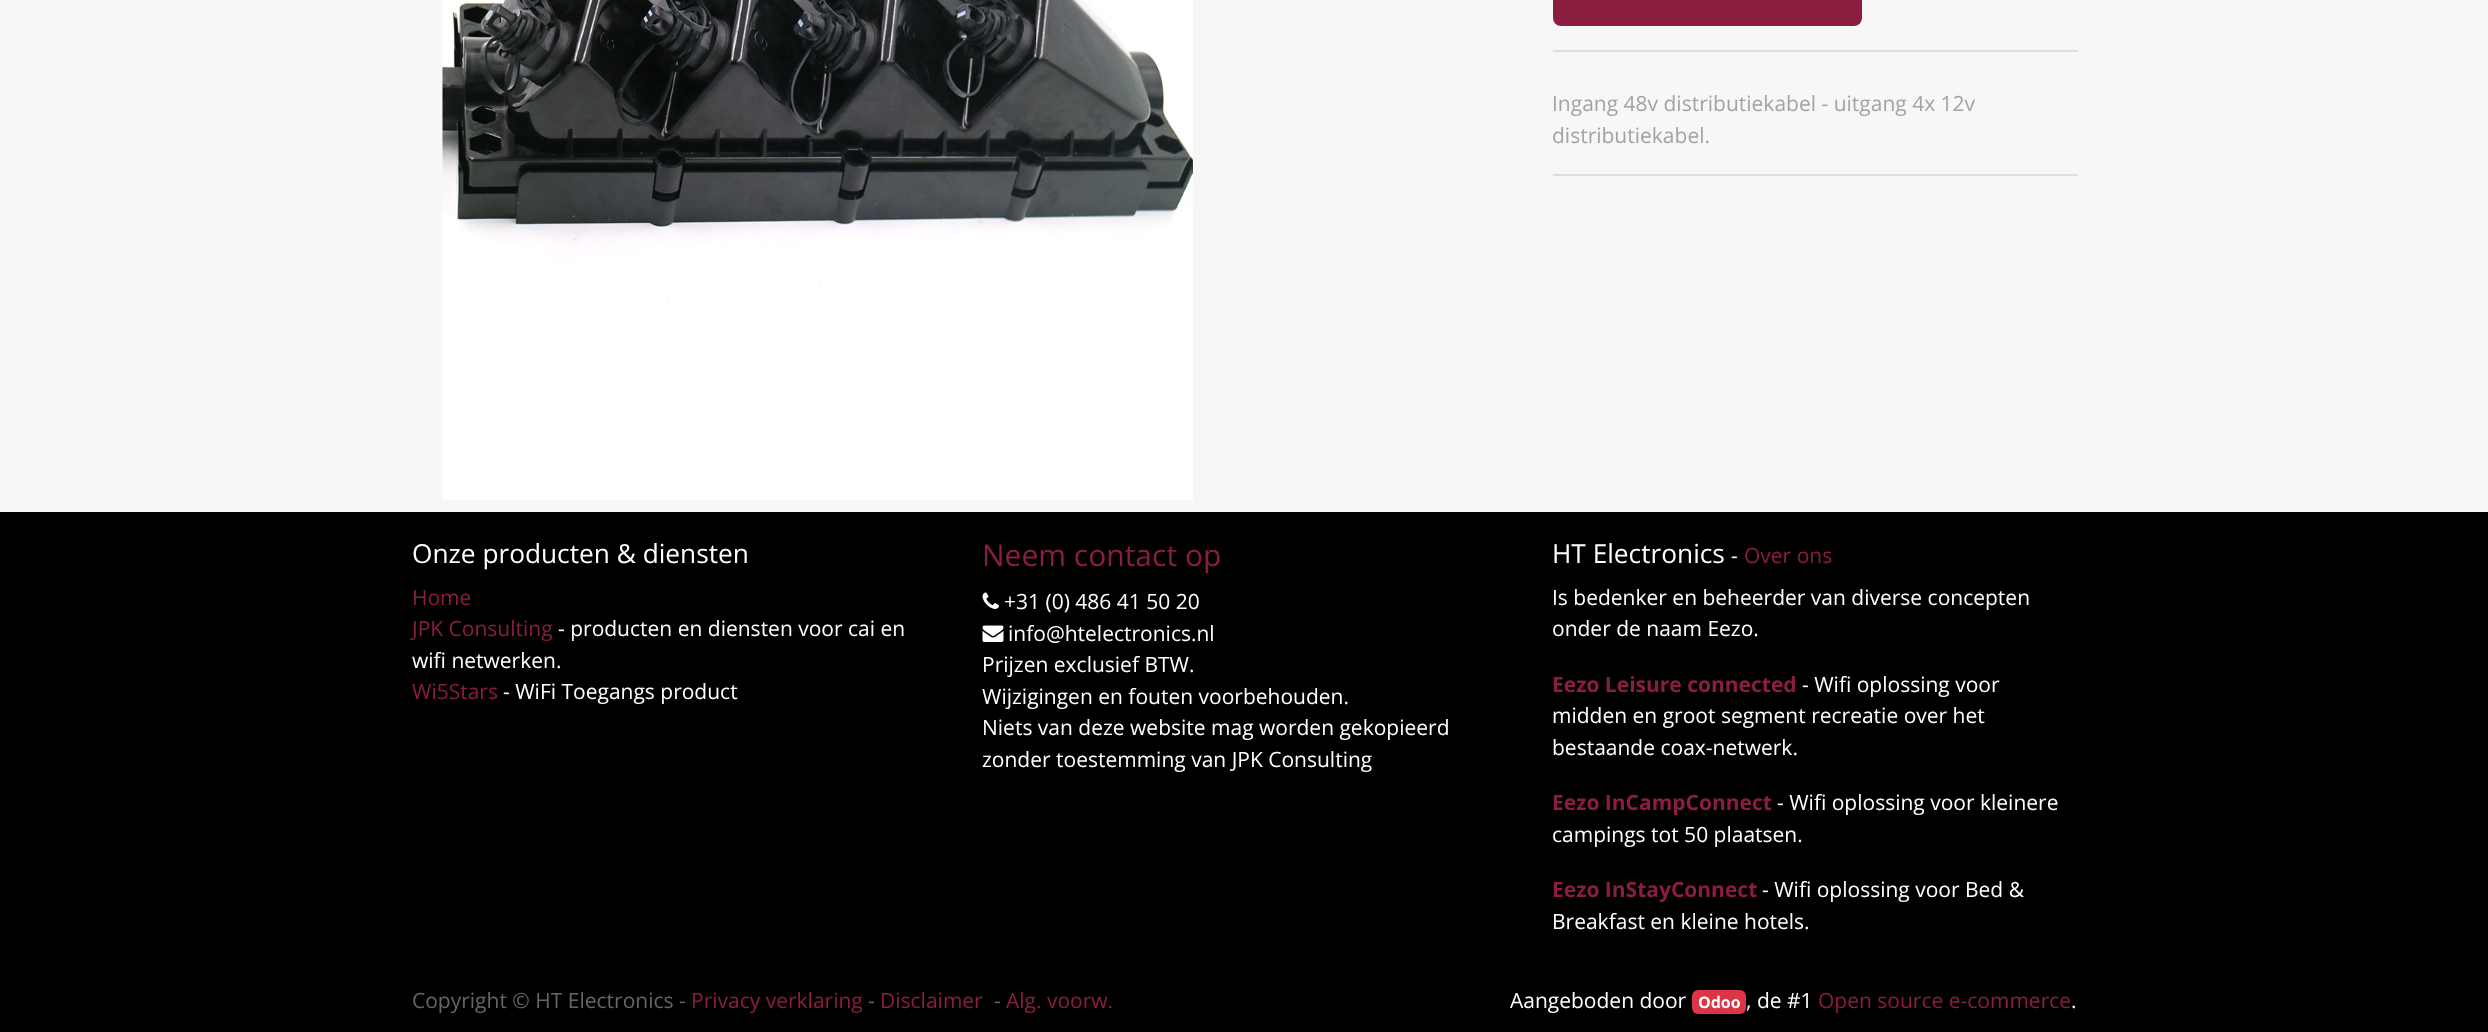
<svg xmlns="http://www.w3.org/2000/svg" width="2488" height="1032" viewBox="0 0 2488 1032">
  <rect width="100%" height="100%" fill="rgb(247,247,247)"/>
  <image x="442" y="0" width="751" height="500" href="pic1.png"/>
  <rect x="1554" y="-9" width="307" height="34" rx="7" fill="rgb(139,30,63)" stroke="rgb(139,30,63)" stroke-width="2"/>
  <rect x="1553" y="50" width="525" height="2" fill="rgb(222,222,222)"/>
  <g font-family="Open Sans" font-size="21" fill="rgb(161,163,165)">
    <text>
      <tspan x="1552" y="111">Ingang 48v distributiekabel - uitgang 4x 12v</tspan>
      <tspan x="1552" y="143">distributiekabel.</tspan>
    </text>
  </g>
  <rect x="1553" y="174" width="525" height="2" fill="rgb(222,222,222)"/>
  <rect x="0" y="512" width="2488" height="520" fill="rgb(0,0,0)"/>
  <text x="412" y="563" font-family="Open Sans" font-size="26.25" fill="rgb(255,255,255)">Onze producten &amp; diensten</text>
  <g font-family="Open Sans" font-size="21" fill="rgb(139,30,63)">
    <text>
      <tspan x="412" y="605">Home</tspan>
      <tspan x="412" y="636">JPK Consulting</tspan>
    </text>
  </g>
  <g font-family="Open Sans" font-size="21" fill="rgb(255,255,255)">
    <text x="558" y="636">- producten en diensten voor cai en</text>
    <text x="412" y="668">wifi netwerken.</text>
  </g>
  <text x="412" y="699" font-family="Open Sans" font-size="21" fill="rgb(139,30,63)">Wi5Stars</text>
  <text x="503" y="699" font-family="Open Sans" font-size="21" fill="rgb(255,255,255)">- WiFi Toegangs product</text>
  <text x="982" y="566" font-family="Open Sans" font-size="30" fill="rgb(139,30,63)">Neem contact op</text>
  <image x="982" y="592" width="17" height="17" href="pic2.png"/>
  <text x="1004" y="609" font-family="Open Sans" font-size="21" fill="rgb(255,255,255)">+31 (0) 486 41 50 20</text>
  <image x="982" y="625" width="22" height="17" href="pic3.png"/>
  <g font-family="Open Sans" font-size="21" fill="rgb(255,255,255)">
    <text x="1008" y="641">info@htelectronics.nl</text>
    <text>
      <tspan x="982" y="672">Prijzen exclusief BTW.</tspan>
      <tspan x="982" y="704">Wijzigingen en fouten voorbehouden.</tspan>
      <tspan x="982" y="735">Niets van deze website mag worden gekopieerd</tspan>
      <tspan x="982" y="767">zonder toestemming van JPK Consulting</tspan>
    </text>
  </g>
  <text x="1552" y="563" font-family="Open Sans" font-size="26.25" fill="rgb(255,255,255)">HT Electronics</text>
  <text x="1731" y="563" font-family="Open Sans" font-size="21" fill="rgb(255,255,255)">-</text>
  <text x="1744" y="563" font-family="Open Sans" font-size="21" fill="rgb(139,30,63)">Over ons</text>
  <g font-family="Open Sans" font-size="21" fill="rgb(255,255,255)">
    <text>
      <tspan x="1552" y="605">Is bedenker en beheerder van diverse concepten</tspan>
      <tspan x="1552" y="636">onder de naam Eezo.</tspan>
    </text>
  </g>
  <text x="1552" y="692" font-family="Open Sans" font-size="21" font-weight="bold" fill="rgb(139,30,63)">Eezo Leisure connected</text>
  <g font-family="Open Sans" font-size="21" fill="rgb(255,255,255)">
    <text x="1802" y="692">- Wifi oplossing voor</text>
    <text>
      <tspan x="1552" y="723">midden en groot segment recreatie over het</tspan>
      <tspan x="1552" y="755">bestaande coax-netwerk.</tspan>
    </text>
  </g>
  <text x="1552" y="810" font-family="Open Sans" font-size="21" font-weight="bold" fill="rgb(139,30,63)">Eezo InCampConnect</text>
  <g font-family="Open Sans" font-size="21" fill="rgb(255,255,255)">
    <text x="1777" y="810">- Wifi oplossing voor kleinere</text>
    <text x="1552" y="842">campings tot 50 plaatsen.</text>
  </g>
  <text x="1552" y="897" font-family="Open Sans" font-size="21" font-weight="bold" fill="rgb(139,30,63)">Eezo InStayConnect</text>
  <g font-family="Open Sans" font-size="21" fill="rgb(255,255,255)">
    <text x="1762" y="897">- Wifi oplossing voor Bed &amp;</text>
    <text x="1552" y="929">Breakfast en kleine hotels.</text>
  </g>
  <text x="412" y="1008" font-family="Open Sans" font-size="21" fill="rgb(102,102,102)">Copyright © HT Electronics -</text>
  <text x="691" y="1008" font-family="Open Sans" font-size="21" fill="rgb(139,30,63)">Privacy verklaring</text>
  <text x="868" y="1008" font-family="Open Sans" font-size="21" fill="rgb(102,102,102)">-</text>
  <text x="880" y="1008" font-family="Open Sans" font-size="21" fill="rgb(139,30,63)">Disclaimer</text>
  <text x="994" y="1008" font-family="Open Sans" font-size="21" fill="rgb(102,102,102)">-</text>
  <text x="1006" y="1008" font-family="Open Sans" font-size="21" fill="rgb(139,30,63)">Alg. voorw.</text>
  <text x="1510" y="1008" font-family="Open Sans" font-size="21" fill="rgb(255,255,255)">Aangeboden door</text>
  <rect x="1692" y="990" width="54" height="24" rx="6" fill="rgb(220,53,69)"/>
  <text x="1698" y="1008" font-family="Open Sans" font-size="16" font-weight="bold" fill="rgb(255,255,255)">Odoo</text>
  <text x="1746" y="1008" font-family="Open Sans" font-size="21" fill="rgb(255,255,255)">, de #1</text>
  <text x="1818" y="1008" font-family="Open Sans" font-size="21" fill="rgb(139,30,63)">Open source e-commerce</text>
  <text x="2071" y="1008" font-family="Open Sans" font-size="21" fill="rgb(255,255,255)">.</text>
</svg>
